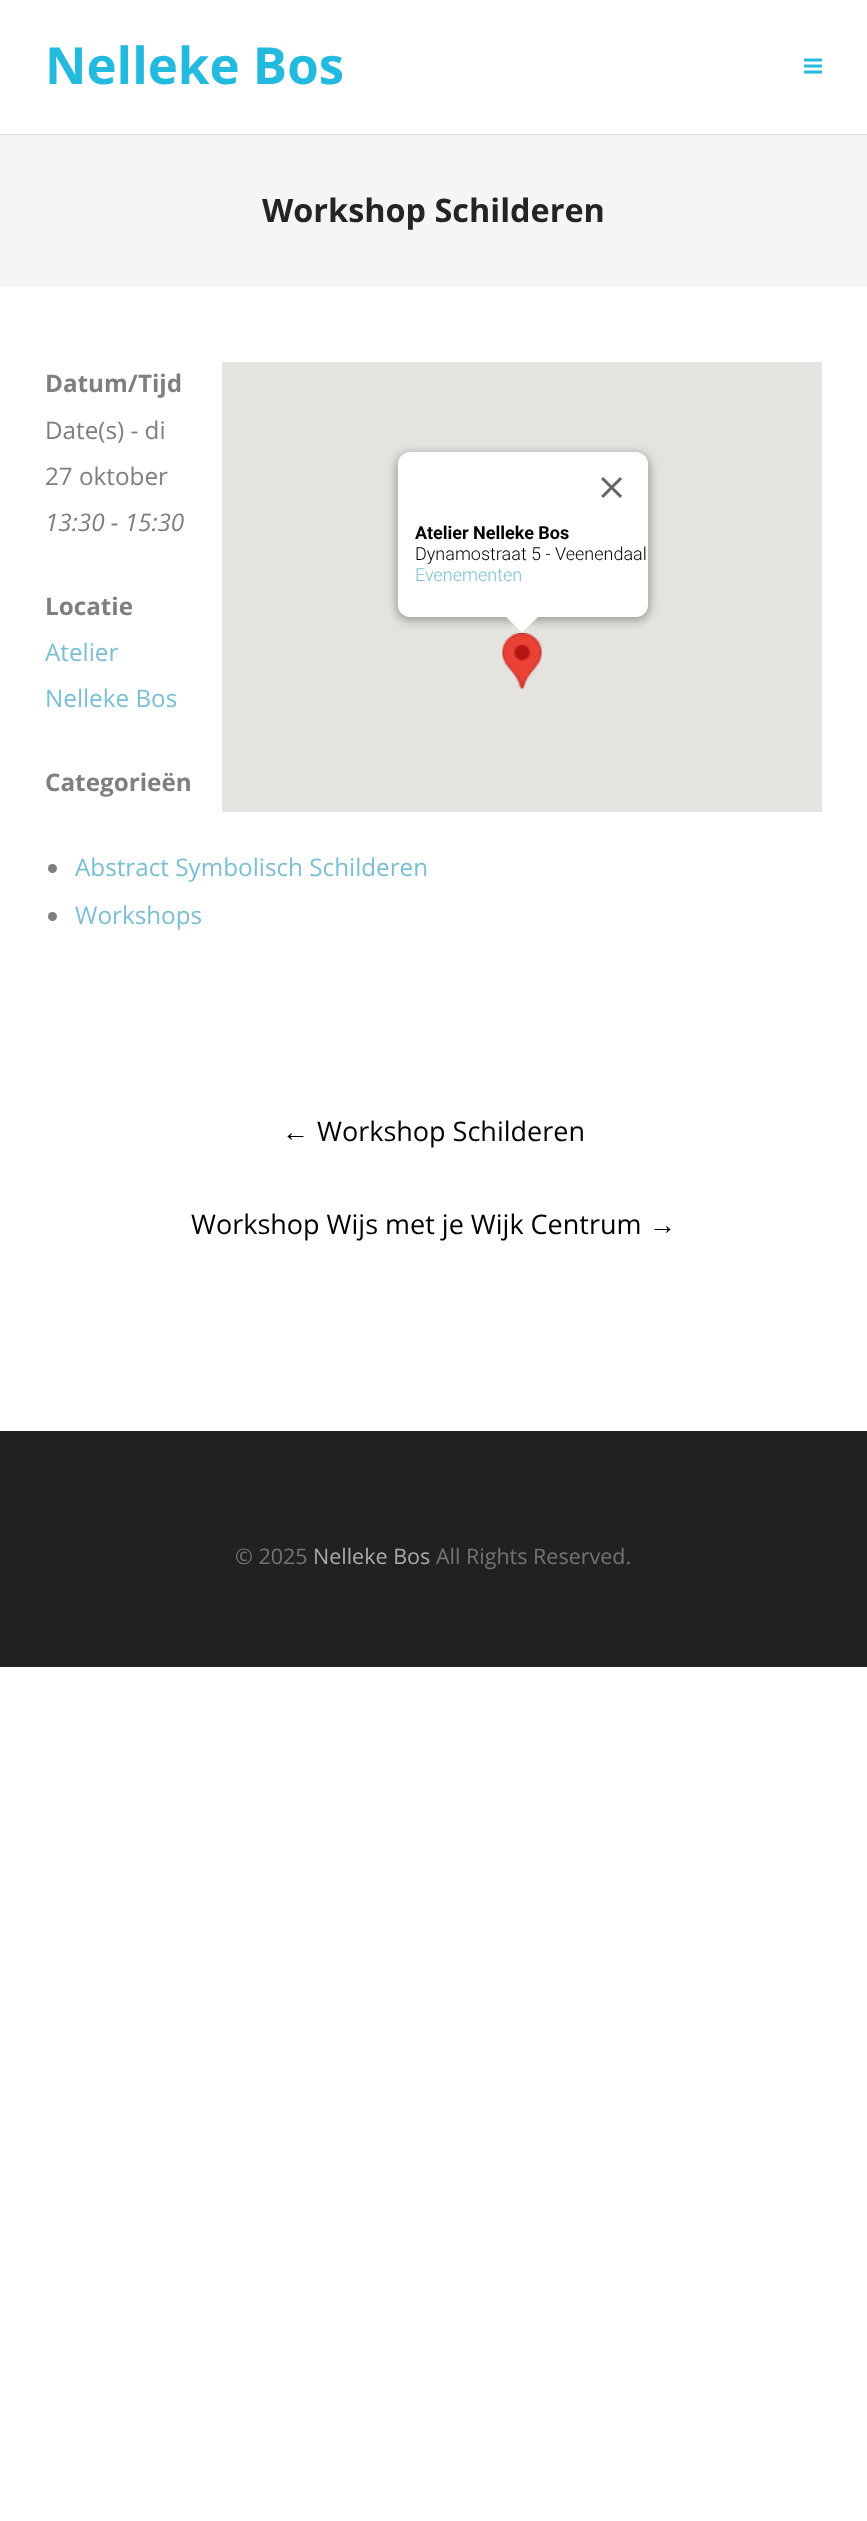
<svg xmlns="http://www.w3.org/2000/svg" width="867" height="2521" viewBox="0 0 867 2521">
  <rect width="100%" height="100%" fill="rgb(255,255,255)"/>
  <rect x="0" y="134" width="867" height="1" fill="rgb(221,221,221)"/>
  <text x="45" y="84" font-family="Open Sans" font-size="51" font-weight="bold" fill="rgb(35,186,224)">Nelleke Bos</text>
  <image x="804" y="58" width="18" height="16" href="pic1.png"/>
  <rect x="0" y="135" width="867" height="152" fill="rgb(245,245,245)"/>
  <text x="262" y="222" font-family="Open Sans" font-size="32.4" font-weight="bold" fill="rgb(36,36,36)">Workshop Schilderen</text>
  <text x="45" y="392" font-family="Open Sans" font-size="24.25" font-weight="bold" fill="rgb(127,127,127)">Datum/Tijd</text>
  <g font-family="Open Sans" font-size="24.25" fill="rgb(127,127,127)">
    <text>
      <tspan x="45" y="439">Date(s) - di</tspan>
      <tspan x="45" y="485">27 oktober</tspan>
    </text>
  </g>
  <text x="45" y="531" font-family="Open Sans" font-size="24.25" font-style="italic" fill="rgb(127,127,127)">13:30 - 15:30</text>
  <rect x="222" y="362" width="600" height="450" fill="rgb(229,227,223)"/>
  <image x="502" y="633" width="40" height="56" href="pic3.png"/>
  <rect x="396" y="453" width="254" height="168" rx="14" fill="rgba(0,0,0,0.3)" filter="blur(5px)"/>
  <rect x="398" y="452" width="250" height="165" rx="12" fill="rgb(255,255,255)"/>
  <image x="601" y="477" width="21" height="21" href="pic2.png"/>
  <text x="415" y="539" font-family="Roboto" font-size="18" font-weight="bold" fill="rgb(0,0,0)">Atelier Nelleke Bos</text>
  <text x="415" y="560" font-family="Roboto" font-size="18" font-weight="300" fill="rgb(0,0,0)">Dynamostraat 5 - Veenendaal</text>
  <text x="415" y="581" font-family="Roboto" font-size="18" font-weight="300" fill="rgb(122,191,211)">Evenementen</text>
  <path d="M504 615L522 632.5L540 615Z" fill="rgb(255,255,255)"/>
  <text x="45" y="615" font-family="Open Sans" font-size="24.25" font-weight="bold" fill="rgb(127,127,127)">Locatie</text>
  <g font-family="Open Sans" font-size="24.25" fill="rgb(122,191,211)">
    <text>
      <tspan x="45" y="661">Atelier</tspan>
      <tspan x="45" y="707">Nelleke Bos</tspan>
    </text>
  </g>
  <text x="45" y="791" font-family="Open Sans" font-size="24.25" font-weight="bold" fill="rgb(127,127,127)">Categorieën</text>
  <circle cx="52.5" cy="868.5" r="4.5" fill="rgb(127,127,127)"/>
  <text x="75" y="876" font-family="Open Sans" font-size="24.25" fill="rgb(122,191,211)">Abstract Symbolisch Schilderen</text>
  <circle cx="52.5" cy="916.5" r="4.5" fill="rgb(127,127,127)"/>
  <text x="75" y="924" font-family="Open Sans" font-size="24.25" fill="rgb(122,191,211)">Workshops</text>
  <text x="282" y="1141" font-family="Liberation Sans" font-size="27" fill="rgb(0,0,0)">←</text>
  <g font-family="Open Sans" font-size="27" fill="rgb(0,0,0)">
    <text x="317" y="1141">Workshop Schilderen</text>
    <text x="191" y="1234">Workshop Wijs met je Wijk Centrum</text>
  </g>
  <text x="649" y="1234" font-family="Liberation Sans" font-size="27" fill="rgb(0,0,0)">→</text>
  <rect x="0" y="1431" width="867" height="236" fill="rgb(33,33,33)"/>
  <text x="235" y="1564" font-family="Open Sans" font-size="21.5" fill="rgb(116,116,117)">© 2025</text>
  <text x="313" y="1564" font-family="Open Sans" font-size="21.5" fill="rgb(171,171,172)">Nelleke Bos</text>
  <text x="436" y="1564" font-family="Open Sans" font-size="21.5" fill="rgb(116,116,117)">All Rights Reserved.</text>
</svg>
